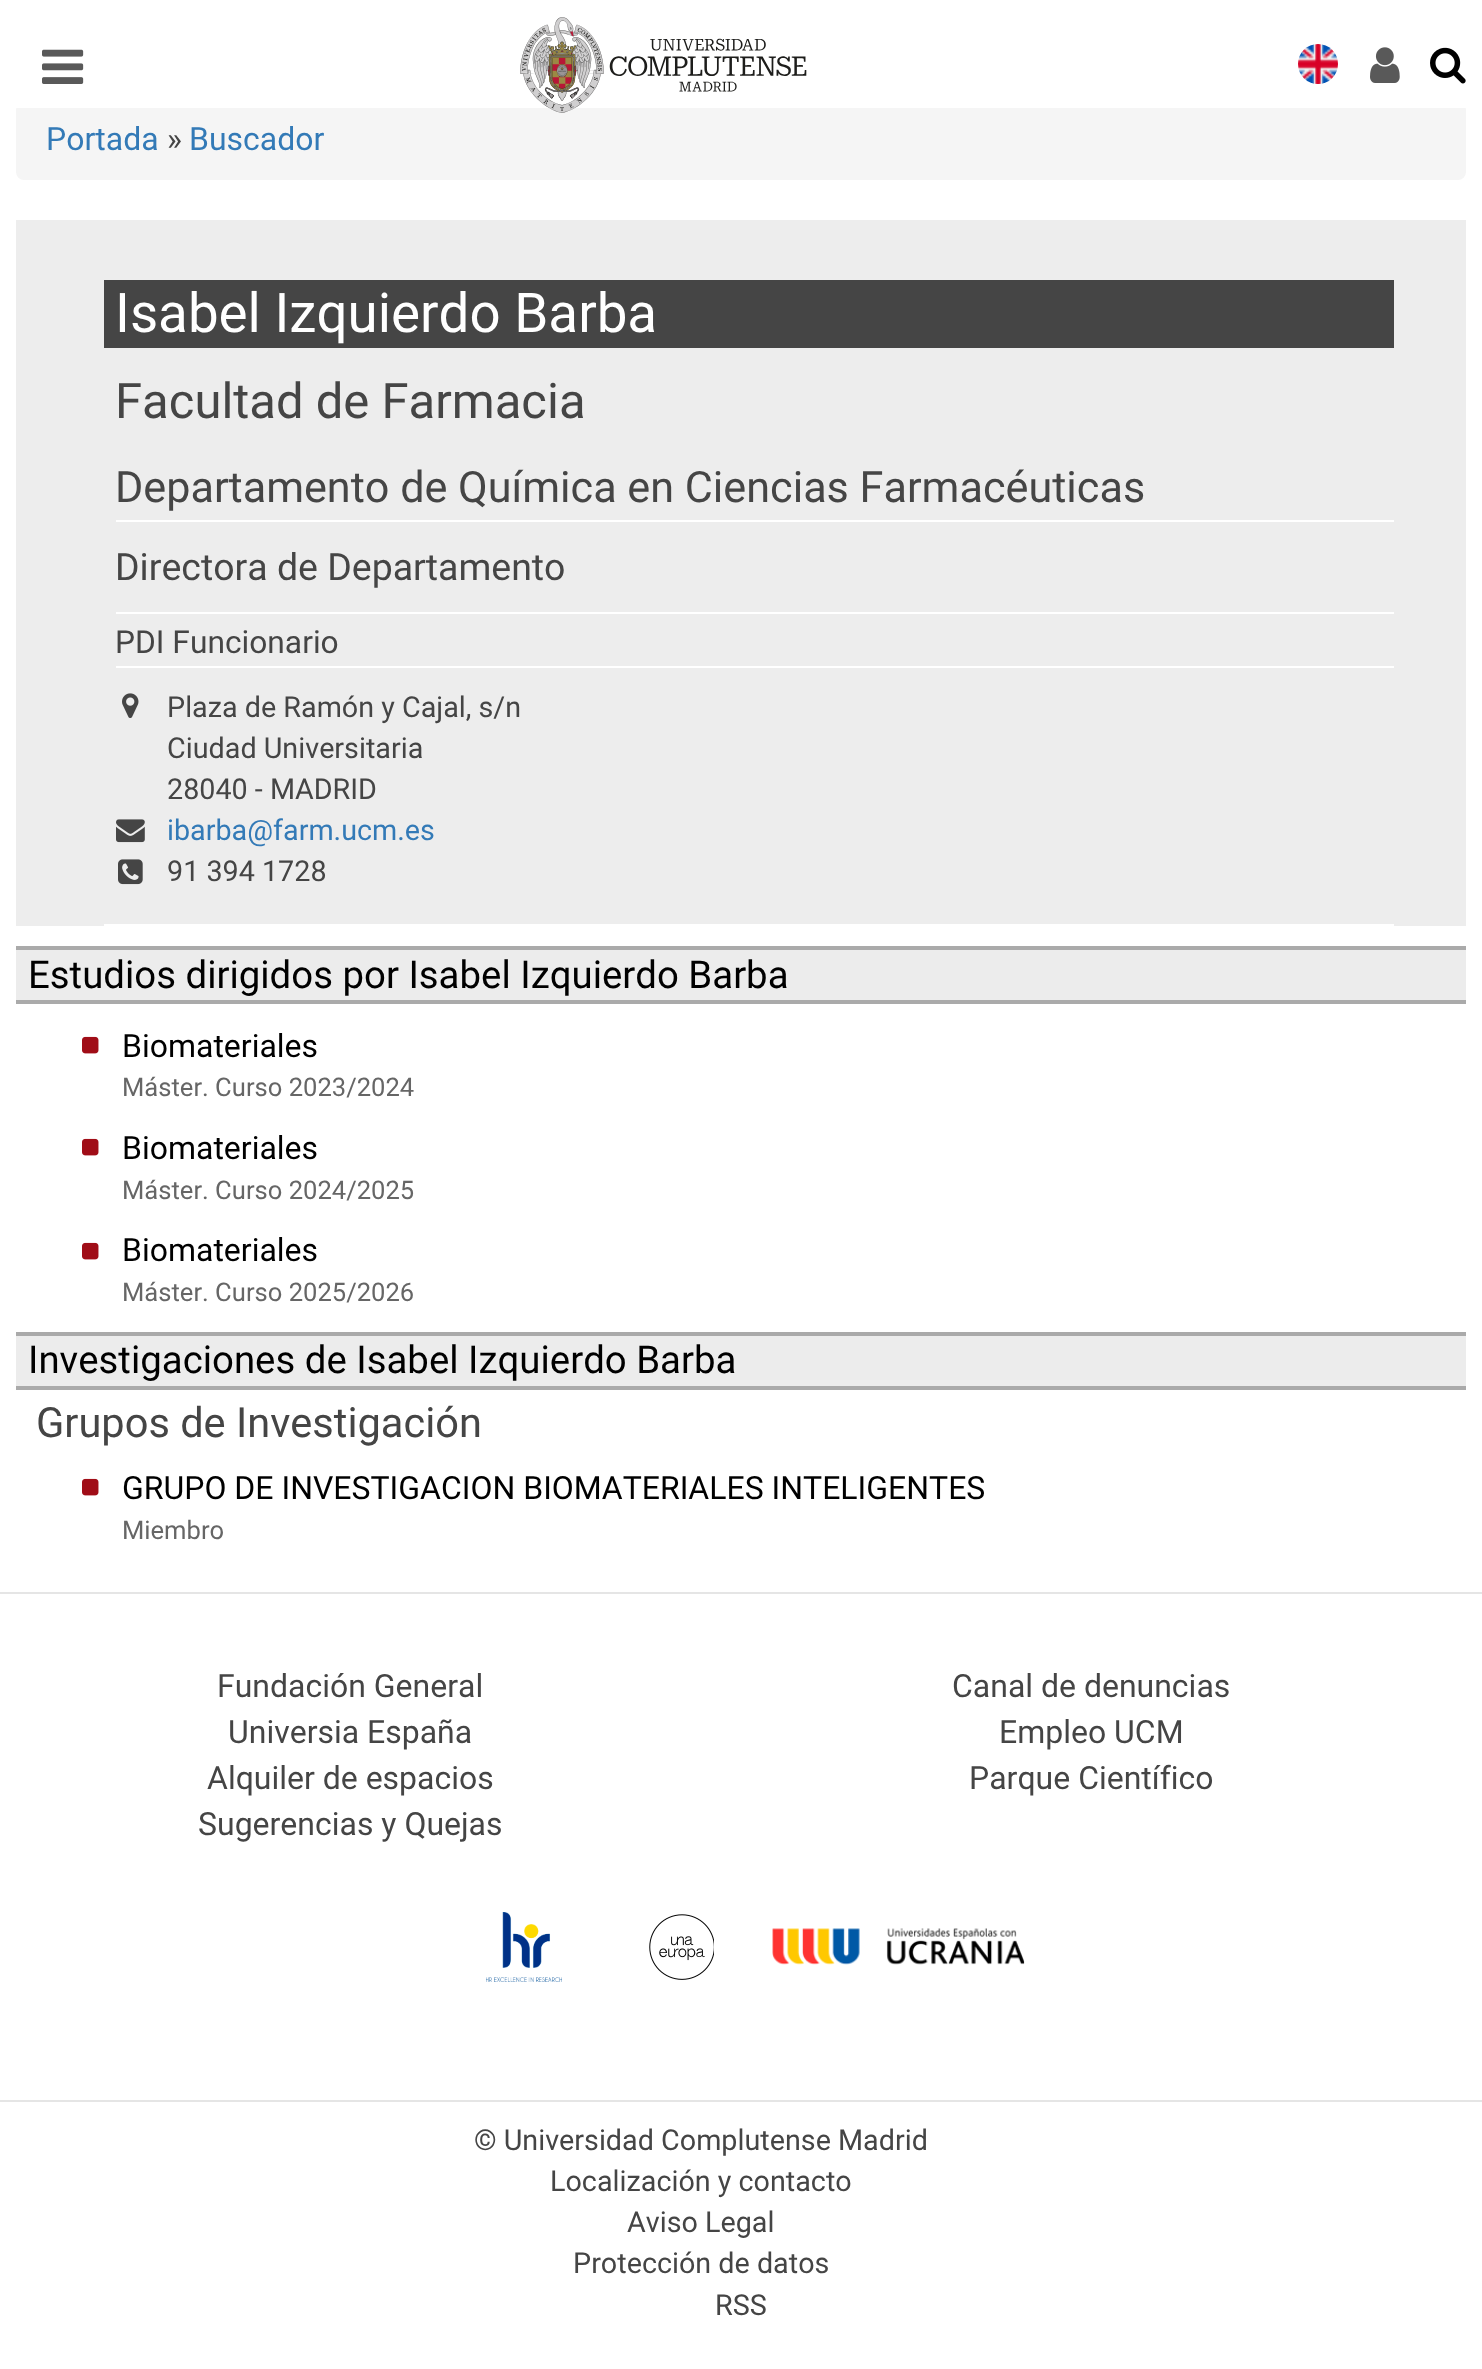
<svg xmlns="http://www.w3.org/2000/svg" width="1482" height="2369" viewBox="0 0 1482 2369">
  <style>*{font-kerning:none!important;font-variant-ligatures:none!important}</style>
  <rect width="100%" height="100%" fill="rgb(255,255,255)"/>
  <rect x="16" y="102" width="1450" height="78" rx="8" fill="rgb(245,245,245)"/>
  <rect x="16" y="102" width="1450" height="6" fill="rgb(255,255,255)"/>
  <image x="520" y="17" width="287" height="96" href="pic1.png"/>
  <image x="1298" y="44" width="40" height="40" href="pic2.png"/>
  <image x="1370" y="47" width="30" height="36" href="pic3.png"/>
  <image x="1430" y="47" width="36" height="37" href="pic4.png"/>
  <image x="42" y="49" width="42" height="35" href="pic5.png"/>
  <text x="46" y="150" font-family="Roboto" font-size="32" fill="rgb(51,122,183)">Portada</text>
  <text x="167" y="150" font-family="Roboto" font-size="32" fill="rgb(69,69,69)">»</text>
  <text x="189" y="150" font-family="Roboto" font-size="32" fill="rgb(51,122,183)">Buscador</text>
  <rect x="16" y="220" width="1450" height="706" fill="rgb(237,237,237)"/>
  <rect x="104" y="280" width="1290" height="68" fill="rgb(69,69,69)"/>
  <text x="115" y="332" font-family="Roboto" font-size="54.75" fill="rgb(255,255,255)">Isabel Izquierdo Barba</text>
  <rect x="104" y="924" width="1290" height="2" fill="rgb(255,255,255)"/>
  <text x="115" y="418" font-family="Roboto" font-size="49" fill="rgb(69,69,69)">Facultad de Farmacia</text>
  <rect x="116" y="520" width="1278" height="2" fill="rgb(255,255,255)"/>
  <text x="115" y="502" font-family="Roboto" font-size="43.2" fill="rgb(69,69,69)">Departamento de Química en Ciencias Farmacéuticas</text>
  <text x="115" y="580" font-family="Roboto" font-size="37.5" fill="rgb(69,69,69)">Directora de Departamento</text>
  <rect x="116" y="612" width="1278" height="2" fill="rgb(255,255,255)"/>
  <rect x="116" y="666" width="1278" height="2" fill="rgb(255,255,255)"/>
  <text x="115" y="653" font-family="Roboto" font-size="31.75" fill="rgb(69,69,69)">PDI Funcionario</text>
  <image x="122" y="693" width="17" height="25" href="pic6.png"/>
  <g font-family="Roboto" font-size="28.75" fill="rgb(69,69,69)">
    <text>
      <tspan x="167" y="717">Plaza de Ramón y Cajal, s/n</tspan>
      <tspan x="167" y="758">Ciudad Universitaria</tspan>
      <tspan x="167" y="799">28040 - MADRID</tspan>
    </text>
  </g>
  <image x="116" y="819" width="29" height="24" href="pic7.png"/>
  <text x="167" y="840" font-family="Roboto" font-size="28.75" fill="rgb(51,122,183)">ibarba@farm.ucm.es</text>
  <image x="118" y="859" width="25" height="26" href="pic8.png"/>
  <text x="167" y="881" font-family="Roboto" font-size="28.75" fill="rgb(69,69,69)">91 394 1728</text>
  <rect x="16" y="950" width="1450" height="50" fill="rgb(236,236,236)"/>
  <rect x="16" y="946" width="1450" height="4" fill="rgb(170,170,170)"/>
  <rect x="16" y="1000" width="1450" height="4" fill="rgb(170,170,170)"/>
  <text x="28" y="988" font-family="Roboto" font-size="38.4" fill="rgb(0,0,0)">Estudios dirigidos por Isabel Izquierdo Barba</text>
  <image x="82" y="1036" width="17" height="18" href="pic9.png"/>
  <text x="122" y="1057" font-family="Roboto" font-size="32" fill="rgb(0,0,0)">Biomateriales</text>
  <text x="122" y="1096" font-family="Roboto" font-size="25.6" fill="rgb(102,102,102)">Máster. Curso 2023/2024</text>
  <image x="82" y="1138" width="17" height="18" href="pic9.png"/>
  <text x="122" y="1159" font-family="Roboto" font-size="32" fill="rgb(0,0,0)">Biomateriales</text>
  <text x="122" y="1199" font-family="Roboto" font-size="25.6" fill="rgb(102,102,102)">Máster. Curso 2024/2025</text>
  <image x="82" y="1242" width="17" height="18" href="pic9.png"/>
  <text x="122" y="1261" font-family="Roboto" font-size="32" fill="rgb(0,0,0)">Biomateriales</text>
  <text x="122" y="1301" font-family="Roboto" font-size="25.6" fill="rgb(102,102,102)">Máster. Curso 2025/2026</text>
  <rect x="16" y="1336" width="1450" height="50" fill="rgb(236,236,236)"/>
  <rect x="16" y="1332" width="1450" height="4" fill="rgb(170,170,170)"/>
  <rect x="16" y="1386" width="1450" height="4" fill="rgb(170,170,170)"/>
  <text x="28" y="1373" font-family="Roboto" font-size="38.4" fill="rgb(0,0,0)">Investigaciones de Isabel Izquierdo Barba</text>
  <text x="36" y="1437" font-family="Roboto" font-size="41.6" fill="rgb(69,69,69)">Grupos de Investigación</text>
  <image x="82" y="1478" width="17" height="18" href="pic9.png"/>
  <text x="122" y="1499" font-family="Roboto" font-size="32" fill="rgb(0,0,0)">GRUPO DE INVESTIGACION BIOMATERIALES INTELIGENTES</text>
  <text x="122" y="1539" font-family="Roboto" font-size="25.6" fill="rgb(102,102,102)">Miembro</text>
  <rect x="0" y="1592" width="1482" height="2" fill="rgb(229,229,229)"/>
  <g font-family="Roboto" font-size="32" fill="rgb(69,69,69)">
    <text x="217" y="1697">Fundación General</text>
    <text x="952" y="1697">Canal de denuncias</text>
    <text x="228" y="1743">Universia España</text>
    <text x="999" y="1743">Empleo UCM</text>
    <text x="207" y="1789">Alquiler de espacios</text>
    <text x="969" y="1789">Parque Científico</text>
    <text x="198" y="1835">Sugerencias y Quejas</text>
  </g>
  <image x="486" y="1912" width="76" height="70" href="pic10.png"/>
  <image x="649" y="1914" width="65" height="66" href="pic11.png"/>
  <image x="772" y="1928" width="253" height="37" href="pic12.png"/>
  <rect x="0" y="2100" width="1482" height="2" fill="rgb(229,229,229)"/>
  <g font-family="Roboto" font-size="28.75" fill="rgb(69,69,69)">
    <text x="474" y="2150">© Universidad Complutense Madrid</text>
    <text x="550" y="2191">Localización y contacto</text>
    <text x="627" y="2232">Aviso Legal</text>
    <text x="573" y="2273">Protección de datos</text>
    <text x="715" y="2315">RSS</text>
  </g>
</svg>
